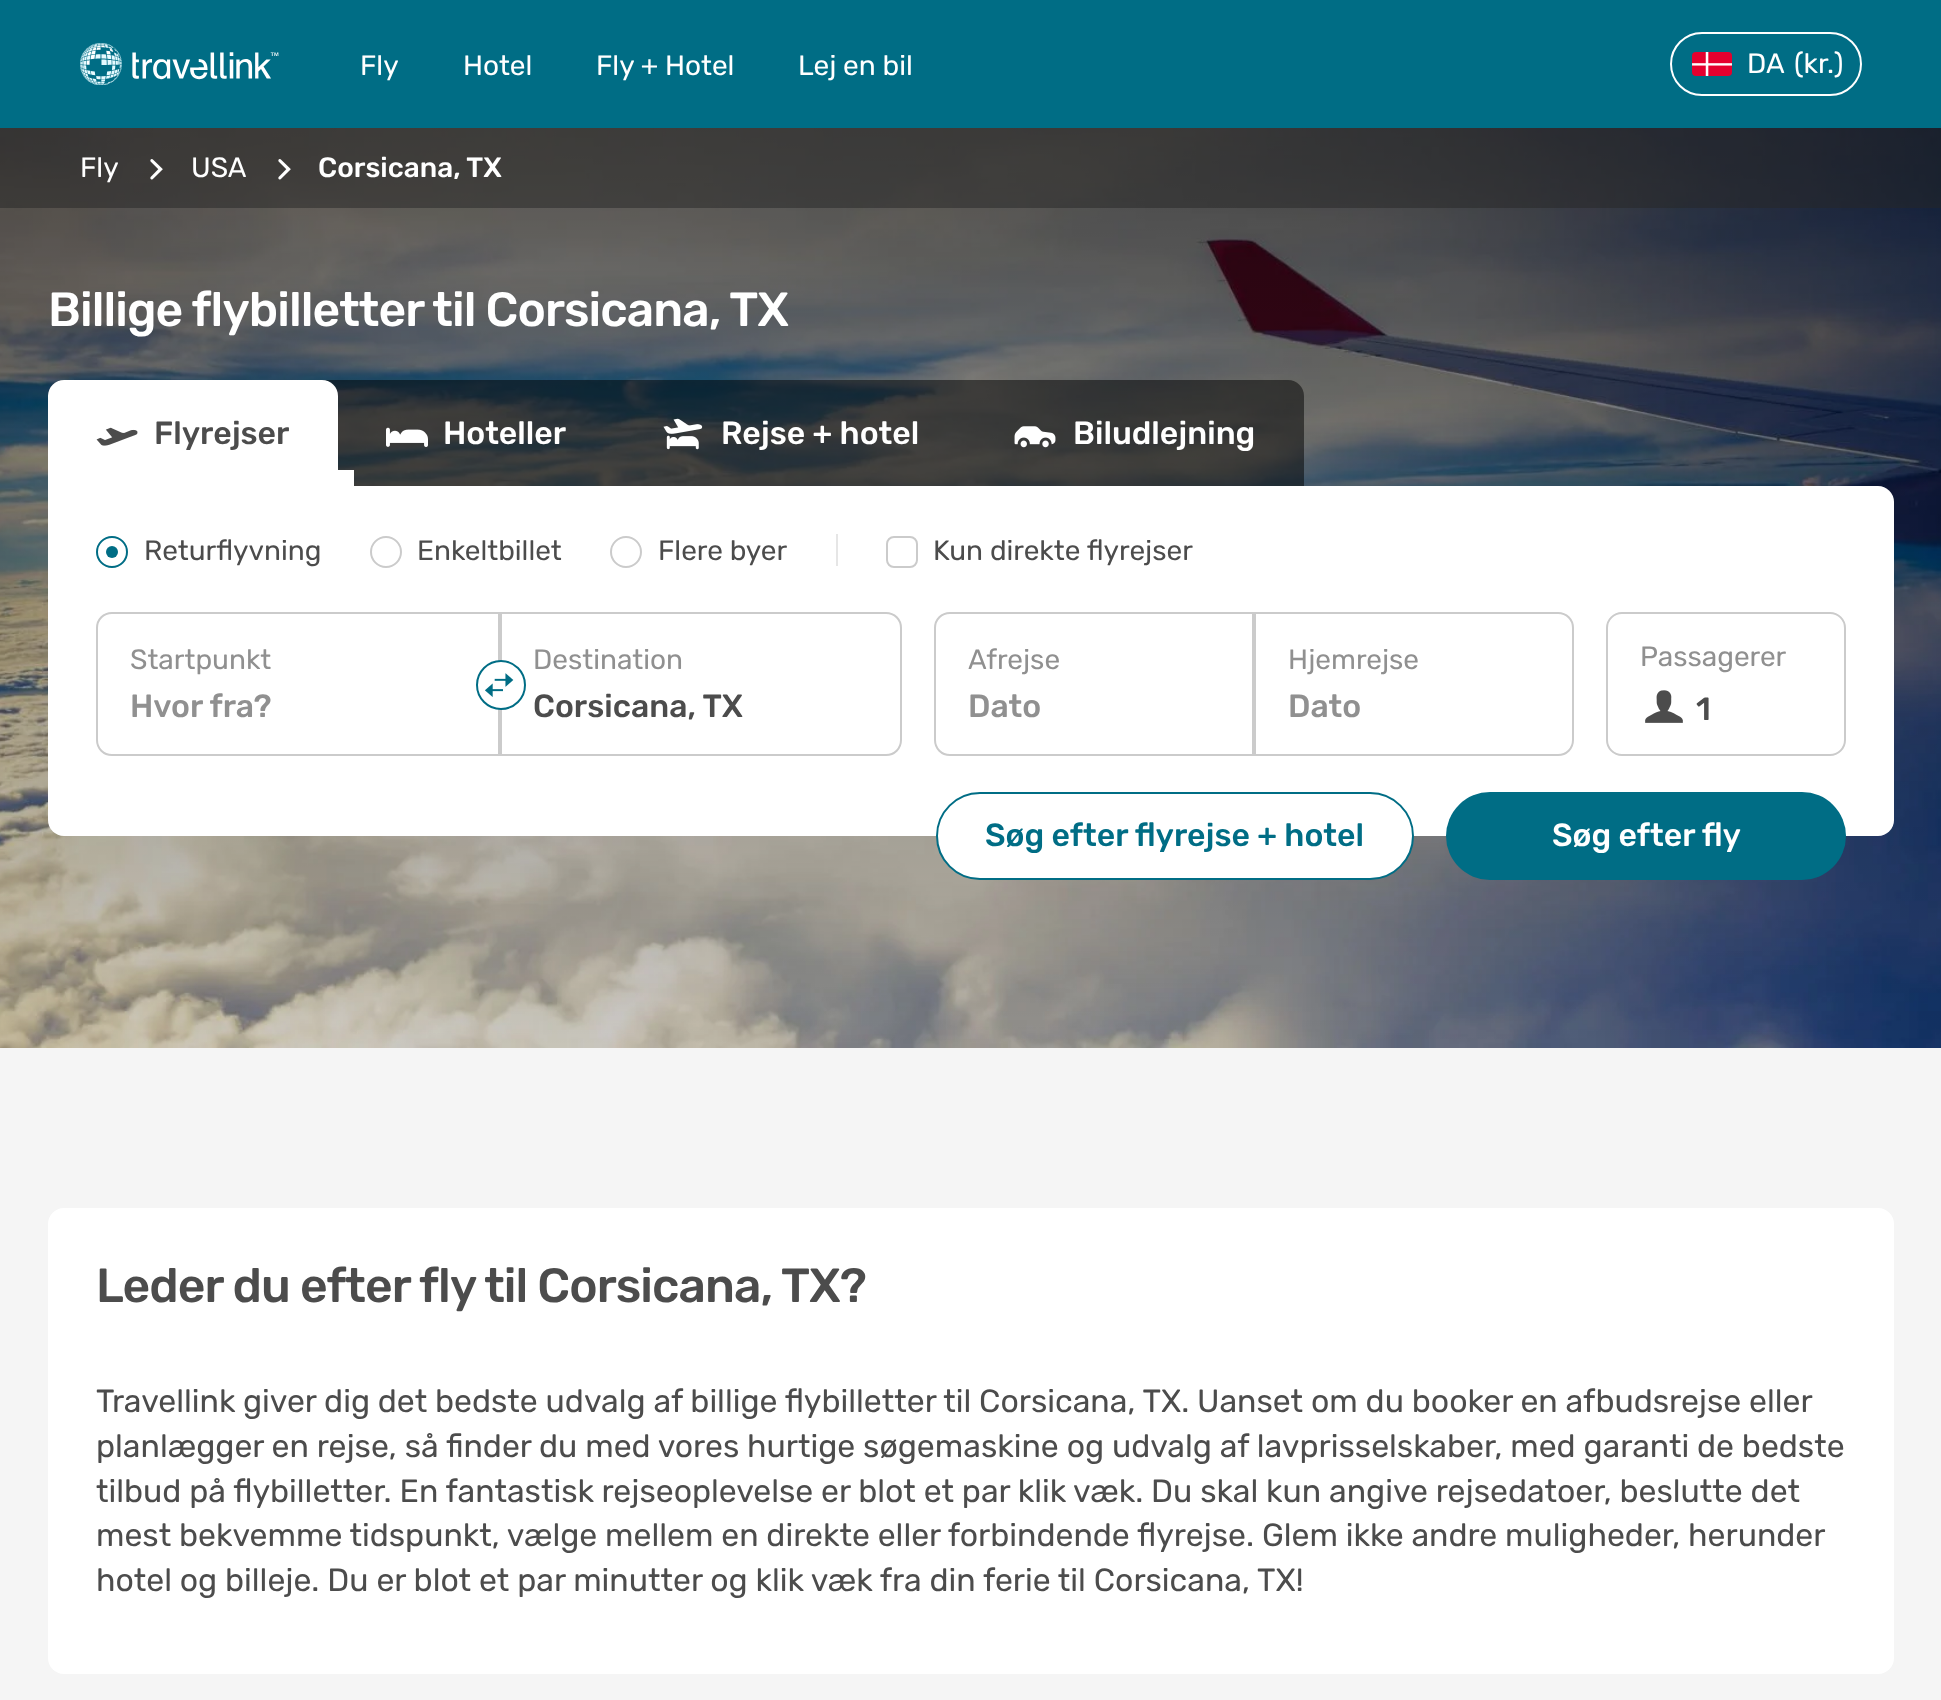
<svg xmlns="http://www.w3.org/2000/svg" width="1941" height="1700" viewBox="0 0 1941 1700">
  <rect width="100%" height="100%" fill="rgb(245,245,245)"/>
  <rect x="0" y="0" width="1941" height="128" fill="rgb(0,109,133)"/>
  <image x="80" y="43" width="199" height="42" href="pic1.png"/>
  <g font-family="Rubik" font-size="28" fill="rgb(255,255,255)">
    <text x="360" y="75">Fly</text>
    <text x="463" y="75">Hotel</text>
    <text x="596" y="75">Fly + Hotel</text>
    <text x="798" y="75">Lej en bil</text>
  </g>
  <rect x="1671" y="33" width="190" height="62" rx="31" fill="none" stroke="rgb(255,255,255)" stroke-width="2"/>
  <image x="1692" y="52" width="40" height="24" href="pic2.png"/>
  <g font-family="Rubik" font-size="28" fill="rgb(255,255,255)">
    <text x="1747" y="73">DA</text>
    <text x="1794" y="73">(kr.)</text>
  </g>
  <image x="0" y="128" width="1941" height="920" href="pic3.png"/>
  <rect x="0" y="128" width="1941" height="80" fill="rgba(38,38,38,0.5)"/>
  <text x="80" y="177" font-family="Rubik" font-size="28" fill="rgb(255,255,255)">Fly</text>
  <image x="150" y="159" width="13" height="21" href="pic4.png"/>
  <text x="191" y="177" font-family="Rubik" font-size="28" fill="rgb(255,255,255)">USA</text>
  <image x="278" y="159" width="13" height="21" href="pic5.png"/>
  <text x="318" y="177" font-family="Rubik" font-size="28" font-weight="500" fill="rgb(255,255,255)">Corsicana, TX</text>
  <text x="48" y="326" font-family="Rubik" font-size="48" font-weight="500" letter-spacing="-0.95" fill="rgb(255,255,255)">Billige flybilletter til Corsicana, TX</text>
  <path d="M64 380H1288C1297 380 1304 387 1304 396V502H48V396C48 387 55 380 64 380Z" fill="rgba(0,0,0,0.5)"/>
  <path d="M64 380H322C331 380 338 387 338 396V502H48V396C48 387 55 380 64 380Z" fill="rgb(255,255,255)"/>
  <image x="96" y="427" width="42" height="19" href="pic6.png"/>
  <text x="154" y="444" font-family="Rubik" font-size="32" font-weight="500" fill="rgb(76,76,76)">Flyrejser</text>
  <rect x="338" y="470" width="16" height="16" fill="rgb(255,255,255)"/>
  <image x="386" y="427" width="42" height="20" href="pic7.png"/>
  <text x="443" y="444" font-family="Rubik" font-size="32" font-weight="500" fill="rgb(255,255,255)">Hoteller</text>
  <image x="663" y="418" width="40" height="32" href="pic8.png"/>
  <text x="721" y="444" font-family="Rubik" font-size="32" font-weight="500" fill="rgb(255,255,255)">Rejse + hotel</text>
  <image x="1014" y="426" width="42" height="22" href="pic9.png"/>
  <text x="1073" y="444" font-family="Rubik" font-size="32" font-weight="500" fill="rgb(255,255,255)">Biludlejning</text>
  <rect x="48" y="486" width="1846" height="350" rx="16" fill="rgb(255,255,255)"/>
  <circle cx="112" cy="552" r="15" fill="none" stroke="rgb(0,109,133)" stroke-width="2"/>
  <circle cx="112" cy="552" r="6" fill="rgb(0,109,133)"/>
  <text x="144" y="560" font-family="Rubik" font-size="28" fill="rgb(76,76,76)">Returflyvning</text>
  <circle cx="386" cy="552" r="15" fill="none" stroke="rgb(203,203,203)" stroke-width="2"/>
  <text x="417" y="560" font-family="Rubik" font-size="28" fill="rgb(76,76,76)">Enkeltbillet</text>
  <circle cx="626" cy="552" r="15" fill="none" stroke="rgb(203,203,203)" stroke-width="2"/>
  <text x="658" y="560" font-family="Rubik" font-size="28" fill="rgb(76,76,76)">Flere byer</text>
  <rect x="836" y="534" width="2" height="32" fill="rgb(230,230,230)"/>
  <rect x="887" y="537" width="30" height="30" rx="7" fill="none" stroke="rgb(203,203,203)" stroke-width="2"/>
  <text x="933" y="560" font-family="Rubik" font-size="28" fill="rgb(76,76,76)">Kun direkte flyrejser</text>
  <path d="M112 613H499V755H112C103.5 755 97 748.5 97 740V628C97 619.5 103.5 613 112 613Z" fill="none" stroke="rgb(203,203,203)" stroke-width="2"/>
  <text x="130" y="669" font-family="Rubik" font-size="28" fill="rgb(144,144,144)">Startpunkt</text>
  <text x="130" y="717" font-family="Rubik" font-size="32" font-weight="500" fill="rgb(144,144,144)">Hvor fra?</text>
  <path d="M501 613H886C894.5 613 901 619.5 901 628V740C901 748.5 894.5 755 886 755H501Z" fill="none" stroke="rgb(203,203,203)" stroke-width="2"/>
  <circle cx="501" cy="685" r="24" fill="rgb(255,255,255)" stroke="rgb(0,109,133)" stroke-width="2"/>
  <image x="485" y="673" width="29" height="24" href="pic10.png"/>
  <text x="533" y="669" font-family="Rubik" font-size="28" fill="rgb(144,144,144)">Destination</text>
  <text x="533" y="717" font-family="Rubik" font-size="32" font-weight="500" fill="rgb(76,76,76)">Corsicana, TX</text>
  <path d="M950 613H1253V755H950C941.5 755 935 748.5 935 740V628C935 619.5 941.5 613 950 613Z" fill="none" stroke="rgb(203,203,203)" stroke-width="2"/>
  <text x="968" y="669" font-family="Rubik" font-size="28" fill="rgb(144,144,144)">Afrejse</text>
  <text x="968" y="717" font-family="Rubik" font-size="32" font-weight="500" fill="rgb(144,144,144)">Dato</text>
  <path d="M1255 613H1558C1566.5 613 1573 619.5 1573 628V740C1573 748.5 1566.5 755 1558 755H1255Z" fill="none" stroke="rgb(203,203,203)" stroke-width="2"/>
  <text x="1288" y="669" font-family="Rubik" font-size="28" fill="rgb(144,144,144)">Hjemrejse</text>
  <text x="1288" y="717" font-family="Rubik" font-size="32" font-weight="500" fill="rgb(144,144,144)">Dato</text>
  <rect x="1607" y="613" width="238" height="142" rx="15" fill="none" stroke="rgb(203,203,203)" stroke-width="2"/>
  <text x="1640" y="666" font-family="Rubik" font-size="28" fill="rgb(144,144,144)">Passagerer</text>
  <image x="1645" y="690" width="38" height="33" href="pic11.png"/>
  <text x="1696" y="720" font-family="Rubik" font-size="32" font-weight="500" fill="rgb(76,76,76)">1</text>
  <rect x="937" y="793" width="476" height="86" rx="43" fill="rgb(255,255,255)" stroke="rgb(0,109,133)" stroke-width="2"/>
  <text x="985" y="846" font-family="Rubik" font-size="32" font-weight="500" fill="rgb(0,109,133)">Søg efter flyrejse + hotel</text>
  <rect x="1446" y="792" width="400" height="88" rx="44" fill="rgb(0,109,133)"/>
  <text x="1552" y="846" font-family="Rubik" font-size="32" font-weight="500" fill="rgb(255,255,255)">Søg efter fly</text>
  <rect x="48" y="1208" width="1846" height="466" rx="16" fill="rgb(255,255,255)"/>
  <text x="96" y="1302" font-family="Rubik" font-size="48" font-weight="500" letter-spacing="-0.95" fill="rgb(76,76,76)">Leder du efter fly til Corsicana, TX?</text>
  <g font-family="Rubik" font-size="32" fill="rgb(76,76,76)">
    <text>
      <tspan x="96" y="1412">Travellink giver dig det bedste udvalg af billige flybilletter til Corsicana, TX. Uanset om du booker en afbudsrejse eller</tspan>
      <tspan x="96" y="1457">planlægger en rejse, så finder du med vores hurtige søgemaskine og udvalg af lavprisselskaber, med garanti de bedste</tspan>
      <tspan x="96" y="1502">tilbud på flybilletter. En fantastisk rejseoplevelse er blot et par klik væk. Du skal kun angive rejsedatoer, beslutte det</tspan>
      <tspan x="96" y="1546">mest bekvemme tidspunkt, vælge mellem en direkte eller forbindende flyrejse. Glem ikke andre muligheder, herunder</tspan>
      <tspan x="96" y="1591">hotel og billeje. Du er blot et par minutter og klik væk fra din ferie til Corsicana, TX!</tspan>
    </text>
  </g>
</svg>
